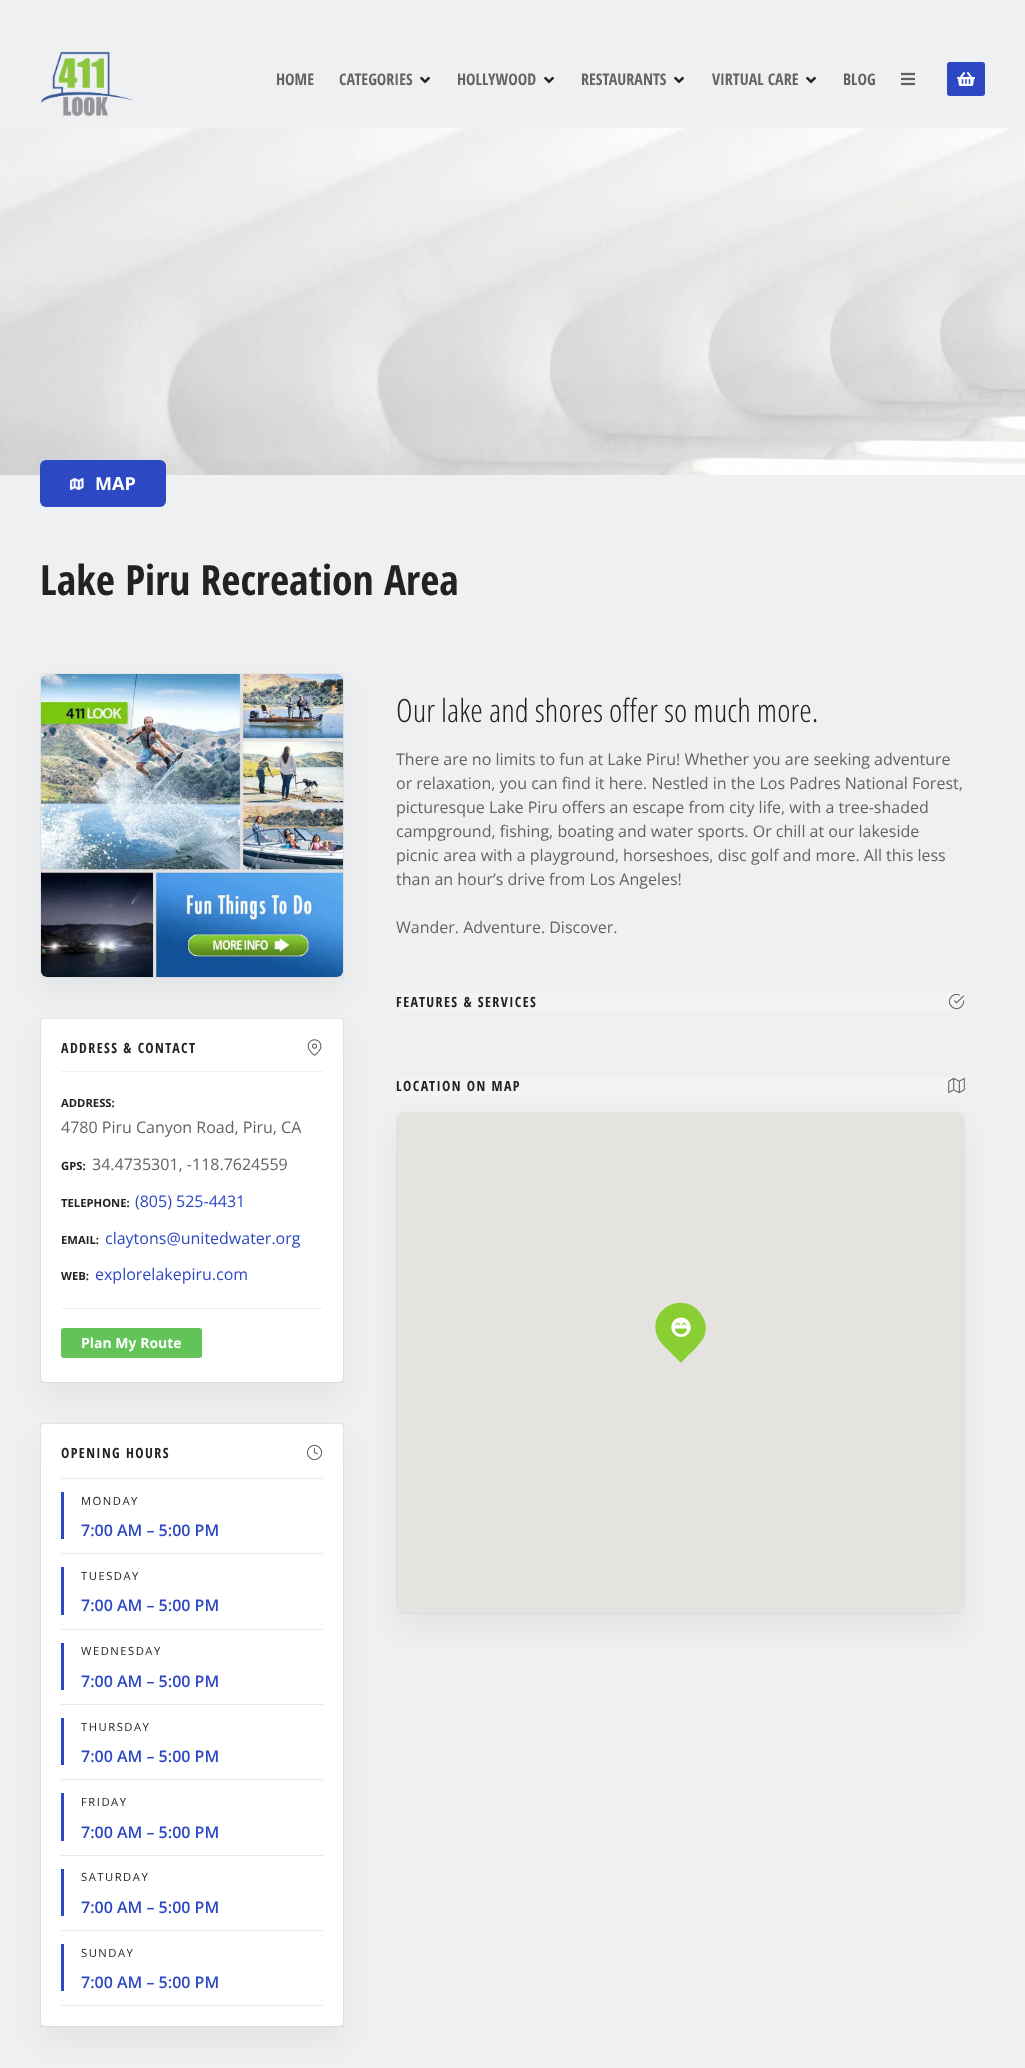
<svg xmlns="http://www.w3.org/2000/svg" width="1025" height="2068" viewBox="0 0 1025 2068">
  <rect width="100%" height="100%" fill="rgb(238,240,241)"/>
  <rect x="396" y="1077" width="569" height="18" fill="rgb(243,245,245)"/>
  <rect x="396" y="993" width="569" height="17" fill="rgb(243,245,245)"/>
  <image x="41" y="51" width="92" height="65" href="pic1.png"/>
  <g font-family="Open Sans Condensed" font-size="16" font-weight="bold" fill="rgb(100,100,100)">
    <text x="276" y="85">HOME</text>
    <text x="339" y="85">CATEGORIES</text>
  </g>
  <image x="420" y="76" width="10" height="8" href="pic2.png"/>
  <text x="457" y="85" font-family="Open Sans Condensed" font-size="16" font-weight="bold" fill="rgb(100,100,100)">HOLLYWOOD</text>
  <image x="544" y="76" width="10" height="8" href="pic2.png"/>
  <text x="581" y="85" font-family="Open Sans Condensed" font-size="16" font-weight="bold" fill="rgb(100,100,100)">RESTAURANTS</text>
  <image x="674" y="76" width="10" height="8" href="pic2.png"/>
  <text x="712" y="85" font-family="Open Sans Condensed" font-size="16" font-weight="bold" fill="rgb(100,100,100)">VIRTUAL CARE</text>
  <image x="806" y="76" width="10" height="8" href="pic2.png"/>
  <text x="843" y="85" font-family="Open Sans Condensed" font-size="16" font-weight="bold" fill="rgb(100,100,100)">BLOG</text>
  <image x="901" y="72" width="14" height="14" href="pic3.png"/>
  <rect x="947" y="62" width="38" height="34" rx="3" fill="rgb(45,72,195)"/>
  <image x="957" y="72" width="18" height="14" href="pic4.png"/>
  <image x="0" y="128" width="1025" height="347" href="pic5.png"/>
  <rect x="40" y="460" width="126" height="47" rx="6" fill="rgb(45,72,195)"/>
  <image x="70" y="478" width="15" height="12" href="pic6.png"/>
  <text x="95" y="490" font-family="Open Sans" font-size="18" font-weight="bold" fill="rgb(255,255,255)">MAP</text>
  <text x="40" y="595" font-family="Open Sans Condensed" font-size="41.6" font-weight="bold" fill="rgb(34,34,34)">Lake Piru Recreation Area</text>
  <text x="396" y="722" font-family="Open Sans Condensed" font-size="32" font-weight="300" fill="rgb(34,34,34)">Our lake and shores offer so much more.</text>
  <g font-family="Open Sans" font-size="16" fill="rgb(100,100,100)">
    <text>
      <tspan x="396" y="765">There are no limits to fun at Lake Piru! Whether you are seeking adventure</tspan>
      <tspan x="396" y="789">or relaxation, you can find it here. Nestled in the Los Padres National Forest,</tspan>
      <tspan x="396" y="813">picturesque Lake Piru offers an escape from city life, with a tree-shaded</tspan>
      <tspan x="396" y="837">campground, fishing, boating and water sports. Or chill at our lakeside</tspan>
      <tspan x="396" y="861">picnic area with a playground, horseshoes, disc golf and more. All this less</tspan>
      <tspan x="396" y="885">than an hour’s drive from Los Angeles!</tspan>
    </text>
    <text x="396" y="933">Wander. Adventure. Discover.</text>
  </g>
  <text x="396" y="1007" font-family="Open Sans Condensed" font-size="14" font-weight="bold" letter-spacing="1.4" fill="rgb(34,34,34)">FEATURES &amp; SERVICES</text>
  <image x="948" y="993" width="17" height="17" href="pic7.png"/>
  <text x="396" y="1091" font-family="Open Sans Condensed" font-size="14" font-weight="bold" letter-spacing="1.4" fill="rgb(34,34,34)">LOCATION ON MAP</text>
  <image x="948" y="1077" width="17" height="17" href="pic8.png"/>
  <rect x="396" y="1127" width="569" height="502" rx="6" fill="rgba(0,0,0,0.05)" filter="blur(15px)"/>
  <rect x="397" y="1113" width="567" height="500" rx="5" fill="rgb(255,255,255)"/>
  <rect x="396.5" y="1112.5" width="568" height="501" fill="none" stroke="rgba(0,0,0,0.04)"/>
  <rect x="397" y="1113" width="567" height="500" rx="6" fill="rgb(229,227,223)"/>
  <path d="M658 1338C645 1310 684 1289 701 1314C706 1321 707 1329 704 1337C700 1345 687 1356 681 1363L663 1345C661 1343 659 1340 658 1338Z" fill="rgb(137,207,52)"/>
  <image x="671" y="1317" width="20" height="20" href="pic9.png"/>
  <rect x="40" y="688" width="304" height="305" rx="6" fill="rgba(0,0,0,0.05)" filter="blur(15px)"/>
  <rect x="41" y="674" width="302" height="303" rx="5" fill="rgb(255,255,255)"/>
  <rect x="40.5" y="673.5" width="303" height="304" fill="none" stroke="rgba(0,0,0,0.04)"/>
  <image x="41" y="674" width="302" height="303" href="pic10.png"/>
  <rect x="40" y="1033" width="304" height="365" rx="6" fill="rgba(0,0,0,0.05)" filter="blur(15px)"/>
  <rect x="41" y="1019" width="302" height="363" rx="5" fill="rgb(255,255,255)"/>
  <rect x="40.5" y="1018.5" width="303" height="364" fill="none" stroke="rgba(0,0,0,0.04)"/>
  <text x="61" y="1053" font-family="Open Sans Condensed" font-size="14" font-weight="bold" letter-spacing="1.4" fill="rgb(34,34,34)">ADDRESS &amp; CONTACT</text>
  <image x="307" y="1039" width="15" height="17" href="pic11.png"/>
  <rect x="61" y="1071" width="262" height="1" fill="rgb(240,240,240)"/>
  <text x="61" y="1107" font-family="Open Sans" font-size="11.25" font-weight="bold" fill="rgb(34,34,34)">ADDRESS:</text>
  <text x="61" y="1133" font-family="Open Sans" font-size="16" fill="rgb(100,100,100)">4780 Piru Canyon Road, Piru, CA</text>
  <text x="61" y="1170" font-family="Open Sans" font-size="11.25" font-weight="bold" fill="rgb(34,34,34)">GPS:</text>
  <text x="92" y="1170" font-family="Open Sans" font-size="16" fill="rgb(100,100,100)">34.4735301, -118.7624559</text>
  <text x="61" y="1207" font-family="Open Sans" font-size="11.25" font-weight="bold" fill="rgb(34,34,34)">TELEPHONE:</text>
  <text x="135" y="1207" font-family="Open Sans" font-size="16" fill="rgb(45,72,195)">(805) 525-4431</text>
  <text x="61" y="1244" font-family="Open Sans" font-size="11.25" font-weight="bold" fill="rgb(34,34,34)">EMAIL:</text>
  <text x="105" y="1244" font-family="Open Sans" font-size="16" fill="rgb(45,72,195)">claytons@unitedwater.org</text>
  <text x="61" y="1280" font-family="Open Sans" font-size="11.25" font-weight="bold" fill="rgb(34,34,34)">WEB:</text>
  <text x="95" y="1280" font-family="Open Sans" font-size="16" fill="rgb(45,72,195)">explorelakepiru.com</text>
  <rect x="61" y="1308" width="262" height="1" fill="rgb(240,240,240)"/>
  <rect x="61" y="1328" width="141" height="30" rx="3" fill="rgb(98,195,88)"/>
  <text x="81" y="1348" font-family="Open Sans" font-size="14" font-weight="bold" fill="rgb(255,255,255)">Plan My Route</text>
  <rect x="40" y="1438" width="304" height="604" rx="6" fill="rgba(0,0,0,0.05)" filter="blur(15px)"/>
  <rect x="41" y="1424" width="302" height="602" rx="5" fill="rgb(255,255,255)"/>
  <rect x="40.5" y="1423.5" width="303" height="603" fill="none" stroke="rgba(0,0,0,0.04)"/>
  <text x="61" y="1458" font-family="Open Sans Condensed" font-size="14" font-weight="bold" letter-spacing="1.4" fill="rgb(34,34,34)">OPENING HOURS</text>
  <image x="306" y="1444" width="17" height="17" href="pic12.png"/>
  <rect x="61" y="2005" width="262" height="1" fill="rgb(233,233,233)"/>
  <rect x="61" y="1478" width="262" height="1" fill="rgb(233,233,233)"/>
  <rect x="61" y="1492" width="3" height="47" fill="rgb(45,72,195)"/>
  <text x="81" y="1505" font-family="Open Sans" font-size="11.25" letter-spacing="1.5" fill="rgb(34,34,34)">MONDAY</text>
  <text x="81" y="1536" font-family="Open Sans" font-size="16" font-weight="600" fill="rgb(45,72,195)">7:00 AM – 5:00 PM</text>
  <rect x="61" y="1553" width="262" height="1" fill="rgb(233,233,233)"/>
  <rect x="61" y="1567" width="3" height="48" fill="rgb(45,72,195)"/>
  <text x="81" y="1580" font-family="Open Sans" font-size="11.25" letter-spacing="1.5" fill="rgb(34,34,34)">TUESDAY</text>
  <text x="81" y="1611" font-family="Open Sans" font-size="16" font-weight="600" fill="rgb(45,72,195)">7:00 AM – 5:00 PM</text>
  <rect x="61" y="1629" width="262" height="1" fill="rgb(233,233,233)"/>
  <rect x="61" y="1643" width="3" height="47" fill="rgb(45,72,195)"/>
  <text x="81" y="1655" font-family="Open Sans" font-size="11.25" letter-spacing="1.5" fill="rgb(34,34,34)">WEDNESDAY</text>
  <text x="81" y="1687" font-family="Open Sans" font-size="16" font-weight="600" fill="rgb(45,72,195)">7:00 AM – 5:00 PM</text>
  <rect x="61" y="1704" width="262" height="1" fill="rgb(233,233,233)"/>
  <rect x="61" y="1718" width="3" height="47" fill="rgb(45,72,195)"/>
  <text x="81" y="1731" font-family="Open Sans" font-size="11.25" letter-spacing="1.5" fill="rgb(34,34,34)">THURSDAY</text>
  <text x="81" y="1762" font-family="Open Sans" font-size="16" font-weight="600" fill="rgb(45,72,195)">7:00 AM – 5:00 PM</text>
  <rect x="61" y="1779" width="262" height="1" fill="rgb(233,233,233)"/>
  <rect x="61" y="1793" width="3" height="48" fill="rgb(45,72,195)"/>
  <text x="81" y="1806" font-family="Open Sans" font-size="11.25" letter-spacing="1.5" fill="rgb(34,34,34)">FRIDAY</text>
  <text x="81" y="1838" font-family="Open Sans" font-size="16" font-weight="600" fill="rgb(45,72,195)">7:00 AM – 5:00 PM</text>
  <rect x="61" y="1855" width="262" height="1" fill="rgb(233,233,233)"/>
  <rect x="61" y="1869" width="3" height="47" fill="rgb(45,72,195)"/>
  <text x="81" y="1881" font-family="Open Sans" font-size="11.25" letter-spacing="1.5" fill="rgb(34,34,34)">SATURDAY</text>
  <text x="81" y="1913" font-family="Open Sans" font-size="16" font-weight="600" fill="rgb(45,72,195)">7:00 AM – 5:00 PM</text>
  <rect x="61" y="1930" width="262" height="1" fill="rgb(233,233,233)"/>
  <rect x="61" y="1944" width="3" height="47" fill="rgb(45,72,195)"/>
  <text x="81" y="1957" font-family="Open Sans" font-size="11.25" letter-spacing="1.5" fill="rgb(34,34,34)">SUNDAY</text>
  <text x="81" y="1988" font-family="Open Sans" font-size="16" font-weight="600" fill="rgb(45,72,195)">7:00 AM – 5:00 PM</text>
</svg>
